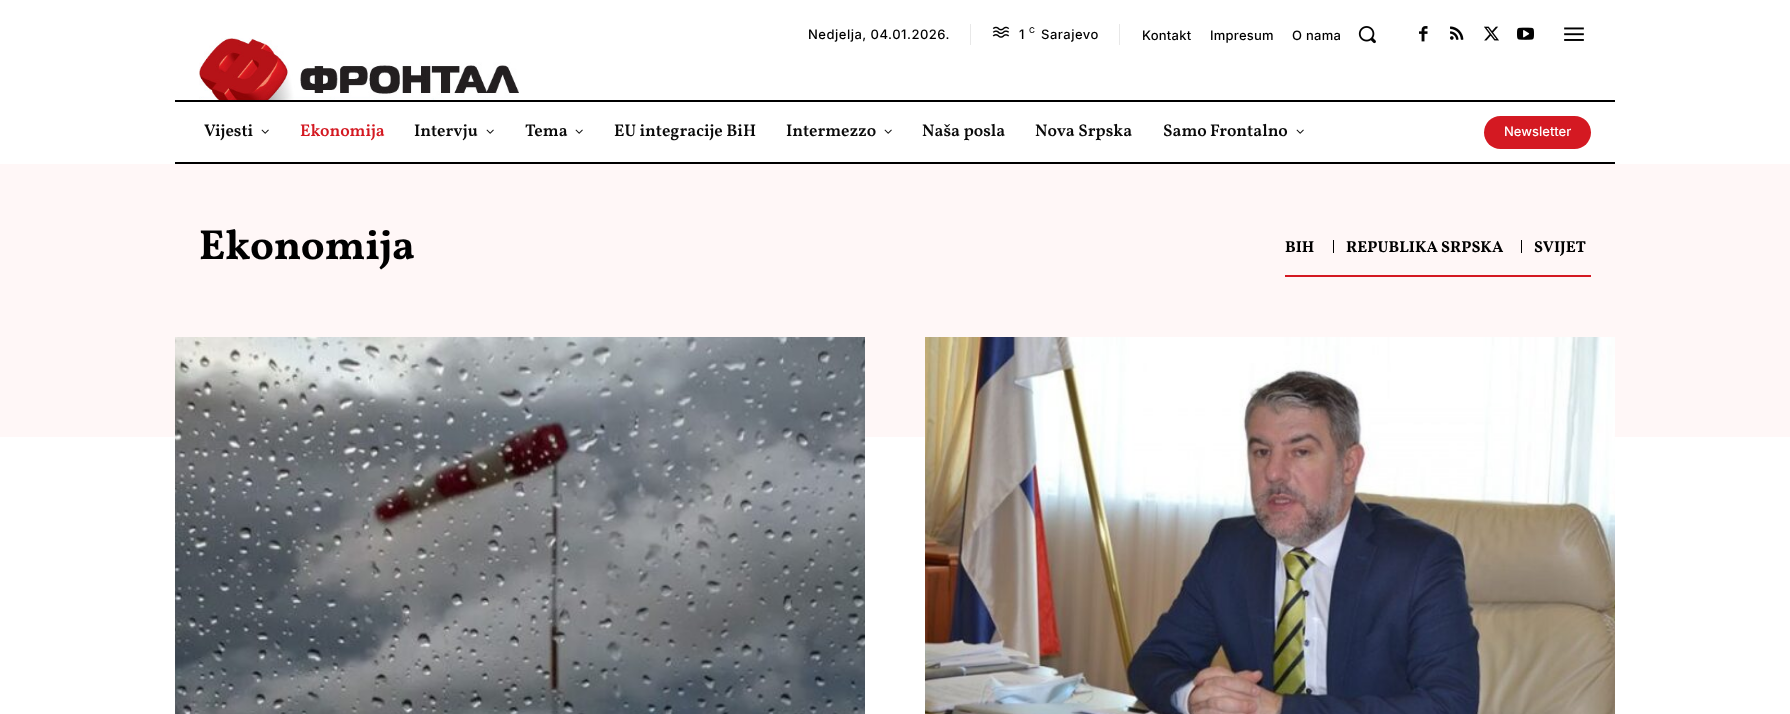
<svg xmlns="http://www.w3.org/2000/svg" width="1790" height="714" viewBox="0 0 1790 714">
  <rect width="100%" height="100%" fill="rgb(255,255,255)"/>
  <text x="808" y="39" font-family="Inter" font-size="13" font-weight="500" letter-spacing="0.5" fill="rgb(0,0,0)">Nedjelja, 04.01.2026.</text>
  <rect x="1119" y="24" width="1" height="21" fill="rgb(232,232,232)"/>
  <rect x="970" y="24" width="1" height="21" fill="rgb(232,232,232)"/>
  <image x="992" y="26" width="18" height="12" href="pic1.png"/>
  <text x="1019" y="39" font-family="Inter" font-size="13" font-weight="500" letter-spacing="0.5" fill="rgb(0,0,0)">1</text>
  <text x="1029" y="33" font-family="Inter" font-size="8" font-weight="500" letter-spacing="0.5" fill="rgb(0,0,0)">C</text>
  <text x="1041" y="39" font-family="Inter" font-size="13" font-weight="500" letter-spacing="0.5" fill="rgb(0,0,0)">Sarajevo</text>
  <g font-family="Inter" font-size="13" font-weight="500" letter-spacing="0.25" fill="rgb(0,0,0)">
    <text x="1142" y="40">Kontakt</text>
    <text x="1210" y="40">Impresum</text>
    <text x="1292" y="40">O nama</text>
  </g>
  <image x="1358" y="26" width="18" height="18" href="pic2.png"/>
  <image x="1419" y="26" width="9" height="16" href="pic3.png"/>
  <image x="1450" y="26" width="14" height="14" href="pic4.png"/>
  <image x="1484" y="26" width="15" height="15" href="pic5.png"/>
  <image x="1517" y="27" width="17" height="13" href="pic6.png"/>
  <image x="1564" y="27" width="20" height="14" href="pic7.png"/>
  <image x="199" y="38" width="320" height="62" href="pic8.png"/>
  <rect x="175" y="100" width="1440" height="2" fill="rgb(0,0,0)"/>
  <rect x="175" y="162" width="1440" height="2" fill="rgb(0,0,0)"/>
  <text x="204" y="136" font-family="Vollkorn" font-size="17" font-weight="600" fill="rgb(10,10,10)">Vijesti</text>
  <image x="261" y="129" width="8" height="5" href="pic9.png"/>
  <text x="300" y="136" font-family="Vollkorn" font-size="17" font-weight="600" fill="rgb(212,25,34)">Ekonomija</text>
  <text x="414" y="136" font-family="Vollkorn" font-size="17" font-weight="600" fill="rgb(10,10,10)">Intervju</text>
  <image x="486" y="129" width="8" height="5" href="pic9.png"/>
  <text x="525" y="136" font-family="Vollkorn" font-size="17" font-weight="600" fill="rgb(10,10,10)">Tema</text>
  <image x="575" y="129" width="8" height="5" href="pic9.png"/>
  <g font-family="Vollkorn" font-size="17" font-weight="600" fill="rgb(10,10,10)">
    <text x="614" y="136">EU integracije BiH</text>
    <text x="786" y="136">Intermezzo</text>
  </g>
  <image x="884" y="129" width="8" height="5" href="pic9.png"/>
  <g font-family="Vollkorn" font-size="17" font-weight="600" fill="rgb(10,10,10)">
    <text x="922" y="136">Naša posla</text>
    <text x="1035" y="136">Nova Srpska</text>
    <text x="1163" y="136">Samo Frontalno</text>
  </g>
  <image x="1296" y="129" width="8" height="5" href="pic9.png"/>
  <rect x="1484" y="116" width="107" height="33" rx="16.5" fill="rgb(212,25,34)"/>
  <text x="1504" y="136" font-family="Inter" font-size="13" font-weight="500" fill="rgb(255,255,255)">Newsletter</text>
  <rect x="0" y="164" width="1790" height="273" fill="rgb(255,247,247)"/>
  <text x="199" y="259" font-family="Vollkorn" font-size="42" font-weight="bold" fill="rgb(0,0,0)">Ekonomija</text>
  <rect x="1285" y="275" width="306" height="2" fill="rgb(212,25,34)"/>
  <text x="1285" y="252" font-family="Vollkorn" font-size="16" font-weight="bold" fill="rgb(0,0,0)">BIH</text>
  <rect x="1333" y="240" width="1" height="13" fill="rgb(0,0,0)"/>
  <text x="1346" y="252" font-family="Vollkorn" font-size="16" font-weight="bold" fill="rgb(0,0,0)">REPUBLIKA SRPSKA</text>
  <rect x="1521" y="240" width="1" height="13" fill="rgb(0,0,0)"/>
  <text x="1534" y="252" font-family="Vollkorn" font-size="16" font-weight="bold" fill="rgb(0,0,0)">SVIJET</text>
  <image x="175" y="337" width="690" height="377" href="pic10.png"/>
  <image x="925" y="337" width="690" height="377" href="pic11.png"/>
</svg>
